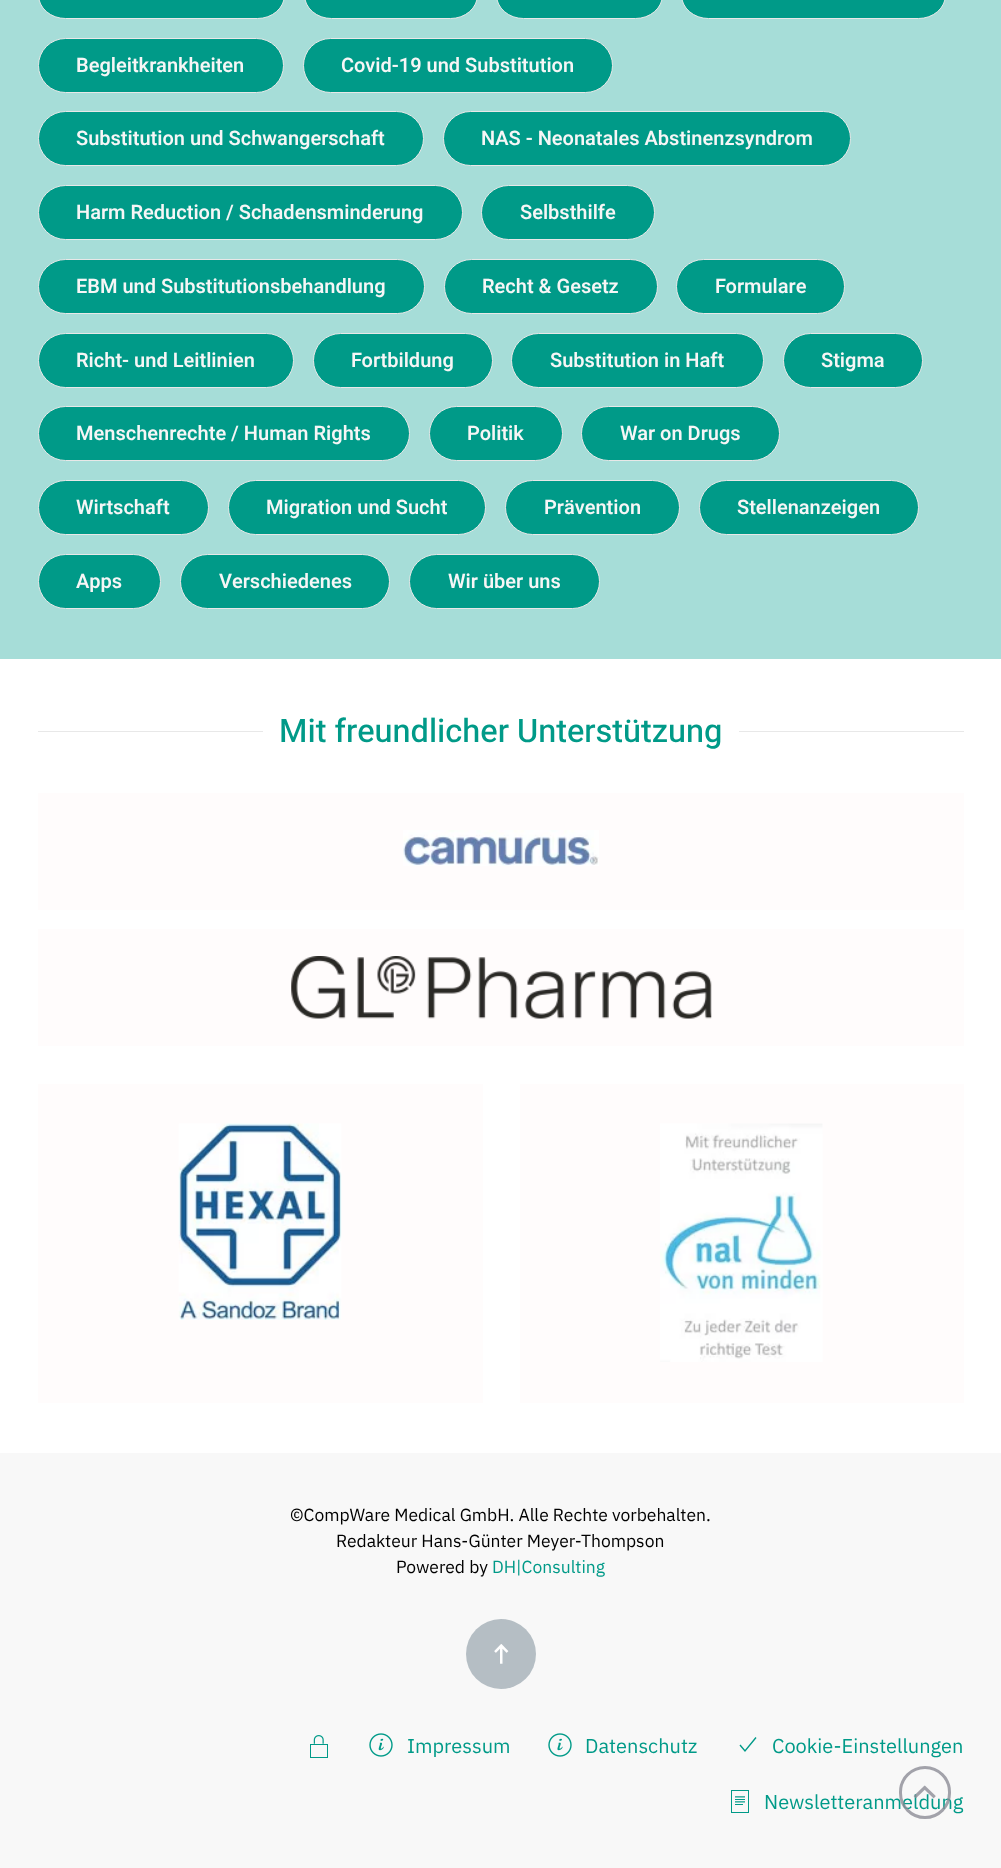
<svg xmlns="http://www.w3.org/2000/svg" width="1001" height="1868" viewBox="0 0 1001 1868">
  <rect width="100%" height="100%" fill="rgb(166,221,216)"/>
  <rect x="38.5" y="-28.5" width="246" height="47" rx="27" fill="rgb(0,154,136)" stroke="rgb(232,232,232)"/>
  <rect x="304.5" y="-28.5" width="173" height="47" rx="27" fill="rgb(0,154,136)" stroke="rgb(232,232,232)"/>
  <rect x="496.5" y="-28.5" width="166" height="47" rx="27" fill="rgb(0,154,136)" stroke="rgb(232,232,232)"/>
  <rect x="681.5" y="-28.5" width="264" height="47" rx="27" fill="rgb(0,154,136)" stroke="rgb(232,232,232)"/>
  <rect x="38.5" y="38.5" width="245" height="54" rx="27" fill="rgb(0,154,136)" stroke="rgb(232,232,232)"/>
  <text x="76" y="72" font-family="Heebo" font-size="20" font-weight="600" fill="rgb(246,246,246)">Begleitkrankheiten</text>
  <rect x="303.5" y="38.5" width="309" height="54" rx="27" fill="rgb(0,154,136)" stroke="rgb(232,232,232)"/>
  <text x="341" y="72" font-family="Heebo" font-size="20" font-weight="600" fill="rgb(246,246,246)">Covid-19 und Substitution</text>
  <rect x="38.5" y="111.5" width="385" height="54" rx="27" fill="rgb(0,154,136)" stroke="rgb(232,232,232)"/>
  <text x="76" y="145" font-family="Heebo" font-size="20" font-weight="600" fill="rgb(246,246,246)">Substitution und Schwangerschaft</text>
  <rect x="443.5" y="111.5" width="407" height="54" rx="27" fill="rgb(0,154,136)" stroke="rgb(232,232,232)"/>
  <text x="481" y="145" font-family="Heebo" font-size="20" font-weight="600" fill="rgb(246,246,246)">NAS - Neonatales Abstinenzsyndrom</text>
  <rect x="38.5" y="185.5" width="424" height="54" rx="27" fill="rgb(0,154,136)" stroke="rgb(232,232,232)"/>
  <text x="76" y="219" font-family="Heebo" font-size="20" font-weight="600" fill="rgb(246,246,246)">Harm Reduction / Schadensminderung</text>
  <rect x="481.5" y="185.5" width="173" height="54" rx="27" fill="rgb(0,154,136)" stroke="rgb(232,232,232)"/>
  <text x="520" y="219" font-family="Heebo" font-size="20" font-weight="600" fill="rgb(246,246,246)">Selbsthilfe</text>
  <rect x="38.5" y="259.5" width="386" height="54" rx="27" fill="rgb(0,154,136)" stroke="rgb(232,232,232)"/>
  <text x="76" y="293" font-family="Heebo" font-size="20" font-weight="600" fill="rgb(246,246,246)">EBM und Substitutionsbehandlung</text>
  <rect x="444.5" y="259.5" width="213" height="54" rx="27" fill="rgb(0,154,136)" stroke="rgb(232,232,232)"/>
  <text x="482" y="293" font-family="Heebo" font-size="20" font-weight="600" fill="rgb(246,246,246)">Recht &amp; Gesetz</text>
  <rect x="676.5" y="259.5" width="168" height="54" rx="27" fill="rgb(0,154,136)" stroke="rgb(232,232,232)"/>
  <text x="715" y="293" font-family="Heebo" font-size="20" font-weight="600" fill="rgb(246,246,246)">Formulare</text>
  <rect x="38.5" y="333.5" width="255" height="54" rx="27" fill="rgb(0,154,136)" stroke="rgb(232,232,232)"/>
  <text x="76" y="367" font-family="Heebo" font-size="20" font-weight="600" fill="rgb(246,246,246)">Richt- und Leitlinien</text>
  <rect x="313.5" y="333.5" width="179" height="54" rx="27" fill="rgb(0,154,136)" stroke="rgb(232,232,232)"/>
  <text x="351" y="367" font-family="Heebo" font-size="20" font-weight="600" fill="rgb(246,246,246)">Fortbildung</text>
  <rect x="511.5" y="333.5" width="252" height="54" rx="27" fill="rgb(0,154,136)" stroke="rgb(232,232,232)"/>
  <text x="550" y="367" font-family="Heebo" font-size="20" font-weight="600" fill="rgb(246,246,246)">Substitution in Haft</text>
  <rect x="783.5" y="333.5" width="139" height="54" rx="27" fill="rgb(0,154,136)" stroke="rgb(232,232,232)"/>
  <text x="821" y="367" font-family="Heebo" font-size="20" font-weight="600" fill="rgb(246,246,246)">Stigma</text>
  <rect x="38.5" y="406.5" width="371" height="54" rx="27" fill="rgb(0,154,136)" stroke="rgb(232,232,232)"/>
  <text x="76" y="440" font-family="Heebo" font-size="20" font-weight="600" fill="rgb(246,246,246)">Menschenrechte / Human Rights</text>
  <rect x="429.5" y="406.5" width="133" height="54" rx="27" fill="rgb(0,154,136)" stroke="rgb(232,232,232)"/>
  <text x="467" y="440" font-family="Heebo" font-size="20" font-weight="600" fill="rgb(246,246,246)">Politik</text>
  <rect x="581.5" y="406.5" width="198" height="54" rx="27" fill="rgb(0,154,136)" stroke="rgb(232,232,232)"/>
  <text x="620" y="440" font-family="Heebo" font-size="20" font-weight="600" fill="rgb(246,246,246)">War on Drugs</text>
  <rect x="38.5" y="480.5" width="170" height="54" rx="27" fill="rgb(0,154,136)" stroke="rgb(232,232,232)"/>
  <text x="76" y="514" font-family="Heebo" font-size="20" font-weight="600" fill="rgb(246,246,246)">Wirtschaft</text>
  <rect x="228.5" y="480.5" width="257" height="54" rx="27" fill="rgb(0,154,136)" stroke="rgb(232,232,232)"/>
  <text x="266" y="514" font-family="Heebo" font-size="20" font-weight="600" fill="rgb(246,246,246)">Migration und Sucht</text>
  <rect x="505.5" y="480.5" width="174" height="54" rx="27" fill="rgb(0,154,136)" stroke="rgb(232,232,232)"/>
  <text x="544" y="514" font-family="Heebo" font-size="20" font-weight="600" fill="rgb(246,246,246)">Prävention</text>
  <rect x="699.5" y="480.5" width="219" height="54" rx="27" fill="rgb(0,154,136)" stroke="rgb(232,232,232)"/>
  <text x="737" y="514" font-family="Heebo" font-size="20" font-weight="600" fill="rgb(246,246,246)">Stellenanzeigen</text>
  <rect x="38.5" y="554.5" width="122" height="54" rx="27" fill="rgb(0,154,136)" stroke="rgb(232,232,232)"/>
  <text x="76" y="588" font-family="Heebo" font-size="20" font-weight="600" fill="rgb(246,246,246)">Apps</text>
  <rect x="180.5" y="554.5" width="209" height="54" rx="27" fill="rgb(0,154,136)" stroke="rgb(232,232,232)"/>
  <text x="219" y="588" font-family="Heebo" font-size="20" font-weight="600" fill="rgb(246,246,246)">Verschiedenes</text>
  <rect x="409.5" y="554.5" width="190" height="54" rx="27" fill="rgb(0,154,136)" stroke="rgb(232,232,232)"/>
  <text x="448" y="588" font-family="Heebo" font-size="20" font-weight="600" fill="rgb(246,246,246)">Wir über uns</text>
  <rect x="0" y="659" width="1001" height="794" fill="rgb(255,255,255)"/>
  <rect x="38" y="731" width="225" height="1" fill="rgb(232,232,232)"/>
  <text x="279" y="742" font-family="Heebo" font-size="32.5" font-weight="500" fill="rgb(0,154,136)">Mit freundlicher Unterstützung</text>
  <rect x="739" y="731" width="225" height="1" fill="rgb(232,232,232)"/>
  <rect x="38" y="793" width="926" height="117" fill="rgb(255,252,252)"/>
  <image x="403" y="830" width="196" height="36" href="pic1.png"/>
  <rect x="38" y="929" width="926" height="117" fill="rgb(255,252,252)"/>
  <image x="291" y="956" width="421" height="63" href="pic2.png"/>
  <rect x="38" y="1084" width="445" height="319" fill="rgb(255,252,252)"/>
  <image x="178" y="1123" width="164" height="197" href="pic3.png"/>
  <rect x="520" y="1084" width="444" height="319" fill="rgb(255,252,252)"/>
  <image x="660" y="1123" width="163" height="239" href="pic4.png"/>
  <rect x="0" y="1453" width="1001" height="415" fill="rgb(248,248,248)"/>
  <g font-family="IBM Plex Sans" font-size="17.5" fill="rgb(0,0,0)">
    <text x="290" y="1521">©CompWare Medical GmbH. Alle Rechte vorbehalten.</text>
    <text x="336" y="1547">Redakteur Hans-Günter Meyer-Thompson</text>
    <text x="396" y="1573">Powered by</text>
  </g>
  <text x="492" y="1573" font-family="IBM Plex Sans" font-size="17.5" fill="rgb(0,154,136)">DH|Consulting</text>
  <circle cx="501" cy="1654" r="35" fill="rgb(181,190,196)"/>
  <image x="494" y="1644" width="15" height="20" href="pic5.png"/>
  <image x="310" y="1735" width="18" height="23" href="pic6.png"/>
  <image x="369" y="1733" width="24" height="24" href="pic7.png"/>
  <text x="407" y="1753" font-family="IBM Plex Sans" font-size="20" fill="rgb(0,154,136)">Impressum</text>
  <image x="548" y="1733" width="24" height="24" href="pic8.png"/>
  <text x="585" y="1753" font-family="IBM Plex Sans" font-size="20" fill="rgb(0,154,136)">Datenschutz</text>
  <path d="M740 1745L745 1751L756 1737.5" fill="none" stroke="rgb(0,154,136)" stroke-width="1.4"/>
  <text x="772" y="1753" font-family="IBM Plex Sans" font-size="20" fill="rgb(0,154,136)">Cookie-Einstellungen</text>
  <image x="731" y="1790" width="18" height="23" href="pic9.png"/>
  <text x="764" y="1809" font-family="IBM Plex Sans" font-size="20" fill="rgb(0,154,136)">Newsletteranmeldung</text>
  <rect x="900.5" y="1767.5" width="49" height="50" rx="24.5" fill="none" stroke="rgba(140,140,150,0.8)" stroke-width="3"/>
  <image x="913" y="1785" width="23" height="14" href="pic10.png"/>
</svg>
